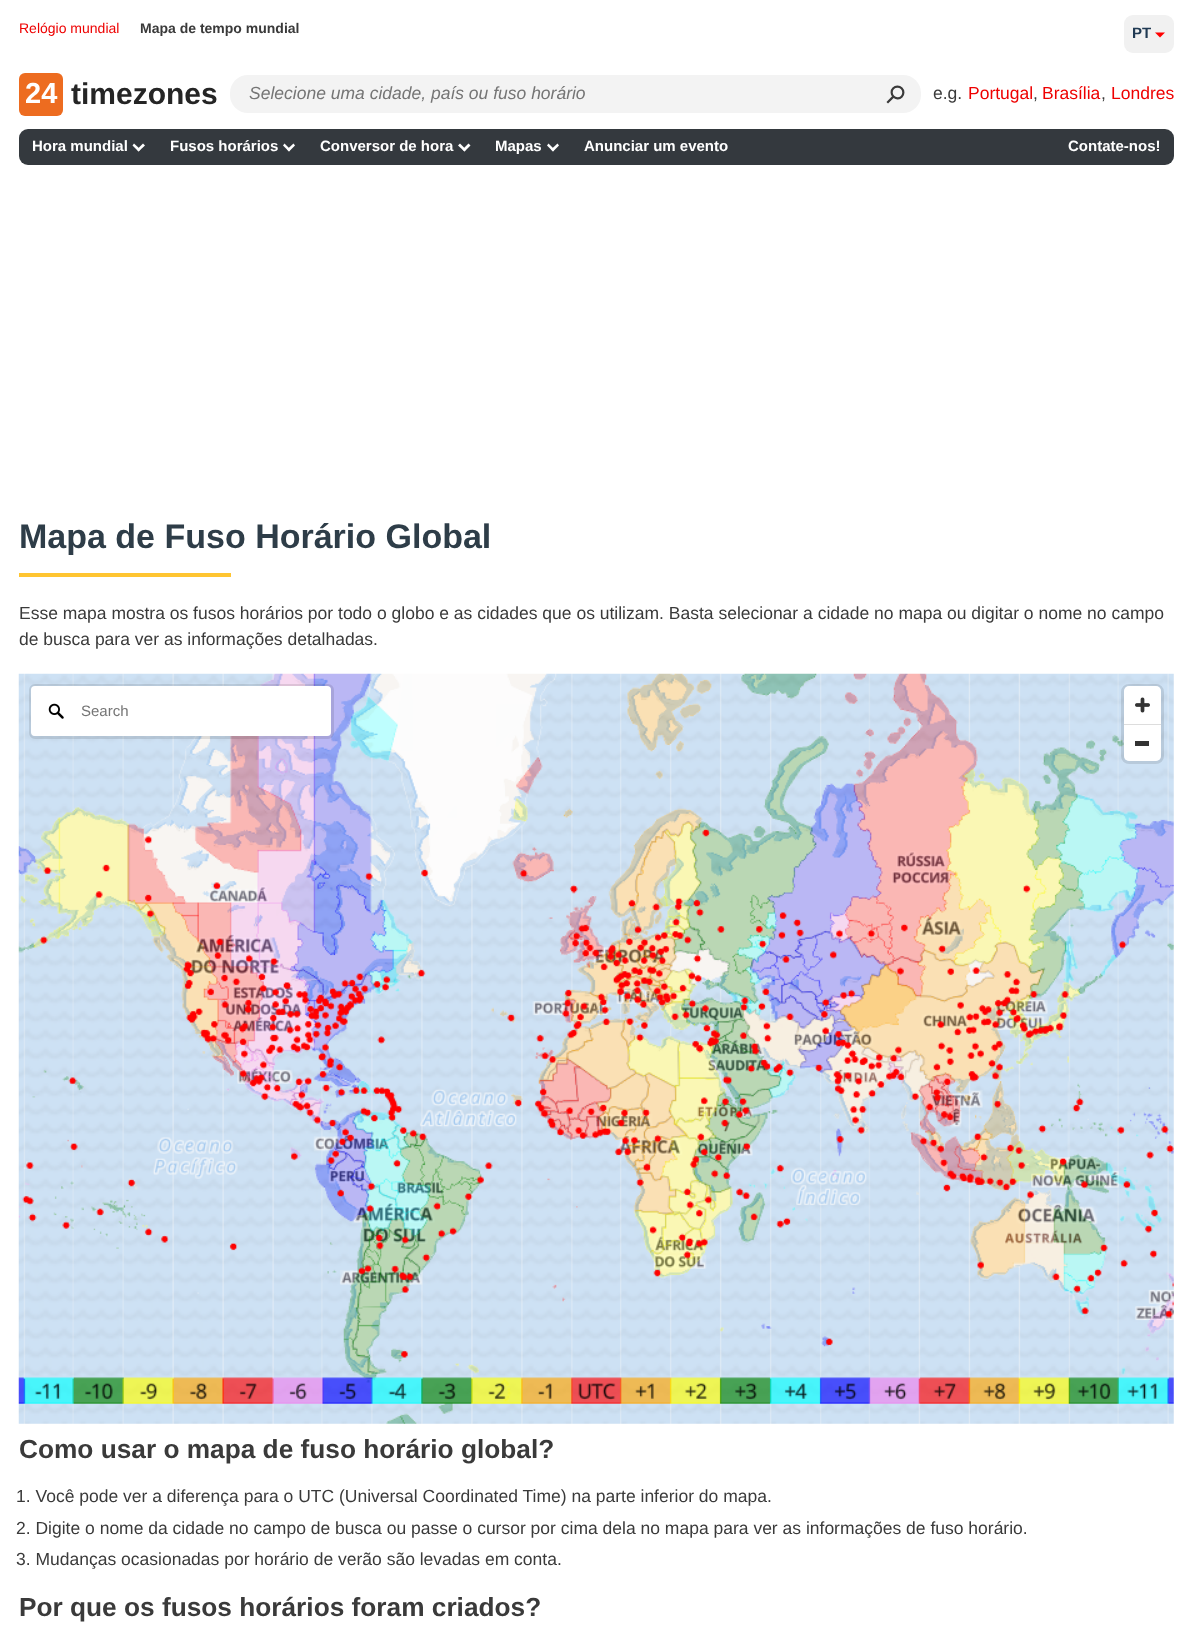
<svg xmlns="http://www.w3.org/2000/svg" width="1192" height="1647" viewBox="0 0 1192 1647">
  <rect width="100%" height="100%" fill="rgb(255,255,255)"/>
  <text x="19" y="33" font-family="Liberation Sans" font-size="14" fill="rgb(238,0,0)">Relógio mundial</text>
  <text x="140" y="33" font-family="Liberation Sans" font-size="14" font-weight="bold" fill="rgb(58,58,58)">Mapa de tempo mundial</text>
  <rect x="19" y="129" width="1155" height="36" rx="9" fill="rgb(52,57,62)"/>
  <rect x="1124" y="15" width="50" height="38" rx="9" fill="rgb(241,241,241)"/>
  <text x="1132" y="38" font-family="Liberation Sans" font-size="15" font-weight="bold" fill="rgb(32,58,83)">PT</text>
  <path d="M1155 32.5H1165L1160 37.5Z" fill="rgb(255,0,0)"/>
  <text x="32" y="151" font-family="Liberation Sans" font-size="15" font-weight="bold" fill="rgb(255,255,255)">Hora mundial</text>
  <path d="M143 143.5L145 145.5L138.5 151.5L137 149.5Z" fill="rgb(255,255,255)"/>
  <path d="M134 143.5L140.5 149.5L138.5 151.5L132.5 145.5Z" fill="rgb(255,255,255)"/>
  <text x="170" y="151" font-family="Liberation Sans" font-size="15" font-weight="bold" fill="rgb(255,255,255)">Fusos horários</text>
  <path d="M293.5 143.5L295 145.5L289 151.5L287 149.5Z" fill="rgb(255,255,255)"/>
  <path d="M284.5 143.5L290.5 149.5L289 151.5L283 145.5Z" fill="rgb(255,255,255)"/>
  <text x="320" y="151" font-family="Liberation Sans" font-size="15" font-weight="bold" fill="rgb(255,255,255)">Conversor de hora</text>
  <path d="M468.5 143.5L470.5 145.5L464.5 151.5L462.5 149.5Z" fill="rgb(255,255,255)"/>
  <path d="M460 143.5L466 149.5L464.5 151.5L458 145.5Z" fill="rgb(255,255,255)"/>
  <text x="495" y="151" font-family="Liberation Sans" font-size="15" font-weight="bold" fill="rgb(255,255,255)">Mapas</text>
  <path d="M557.5 143.5L559 145.5L553 151.5L551 149.5Z" fill="rgb(255,255,255)"/>
  <path d="M548.5 143.5L554.5 149.5L553 151.5L547 145.5Z" fill="rgb(255,255,255)"/>
  <g font-family="Liberation Sans" font-size="15" font-weight="bold" fill="rgb(255,255,255)">
    <text x="584" y="151">Anunciar um evento</text>
    <text x="1068" y="151">Contate-nos!</text>
  </g>
  <rect x="19" y="73" width="44" height="43" rx="6" fill="rgb(237,108,32)"/>
  <text x="25" y="103" font-family="Liberation Sans" font-size="29" font-weight="bold" fill="rgb(255,255,255)">24</text>
  <text x="71" y="104" font-family="Liberation Sans" font-size="30" font-weight="bold" fill="rgb(37,37,37)">timezones</text>
  <rect x="230" y="75" width="691" height="38" rx="18" fill="rgb(243,243,243)"/>
  <text x="249" y="99" font-family="Liberation Sans" font-size="17.5" font-style="italic" fill="rgb(117,117,117)">Selecione uma cidade, país ou fuso horário</text>
  <text x="883" y="94" transform="rotate(45 883 94)" font-family="DejaVu Sans" font-size="25" fill="rgb(58,58,58)">⚲</text>
  <text x="933" y="99" font-family="Liberation Sans" font-size="17.5" fill="rgb(58,58,58)">e.g.</text>
  <text x="968" y="99" font-family="Liberation Sans" font-size="17.5" fill="rgb(238,0,0)">Portugal</text>
  <text x="1033" y="99" font-family="Liberation Sans" font-size="17.5" fill="rgb(58,58,58)">,</text>
  <text x="1042" y="99" font-family="Liberation Sans" font-size="17.5" fill="rgb(238,0,0)">Brasília</text>
  <text x="1101" y="99" font-family="Liberation Sans" font-size="17.5" fill="rgb(58,58,58)">,</text>
  <text x="1111" y="99" font-family="Liberation Sans" font-size="17.5" fill="rgb(238,0,0)">Londres</text>
  <text x="19" y="548" font-family="Liberation Sans" font-size="34" font-weight="bold" fill="rgb(46,61,72)">Mapa de Fuso Horário Global</text>
  <rect x="19" y="573" width="212" height="4" fill="rgb(255,197,49)"/>
  <g font-family="Liberation Sans" font-size="17.5" fill="rgb(58,58,58)">
    <text>
      <tspan x="19" y="619">Esse mapa mostra os fusos horários por todo o globo e as cidades que os utilizam. Basta selecionar a cidade no mapa ou digitar o nome no campo</tspan>
      <tspan x="19" y="645">de busca para ver as informações detalhadas.</tspan>
    </text>
  </g>
  <image x="18" y="673" width="1156" height="751" href="pic1.png"/>
  <rect x="30.5" y="685.5" width="302" height="52" rx="4.5" fill="none" stroke="rgba(0,0,0,0.1)" stroke-width="3"/>
  <rect x="31" y="686" width="300" height="50" rx="4" fill="rgb(255,255,255)"/>
  <image x="48" y="703" width="16" height="16" href="pic2.png"/>
  <text x="81" y="716" font-family="Liberation Sans" font-size="15" fill="rgb(117,117,117)">Search</text>
  <rect x="1122.5" y="685.5" width="40" height="77" rx="6.5" fill="none" stroke="rgba(0,0,0,0.1)" stroke-width="3"/>
  <rect x="1124" y="686" width="37" height="75" rx="5" fill="rgb(255,255,255)"/>
  <image x="1135" y="697" width="15" height="16" href="pic3.png"/>
  <rect x="1135" y="741" width="14" height="5" fill="rgb(51,51,51)"/>
  <rect x="1124" y="724" width="37" height="1" fill="rgb(221,221,221)"/>
  <text x="19" y="1458" font-family="Liberation Sans" font-size="26.25" font-weight="bold" fill="rgb(58,58,58)">Como usar o mapa de fuso horário global?</text>
  <g font-family="Liberation Sans" font-size="17.5" fill="rgb(58,58,58)">
    <text>
      <tspan x="16" y="1502">1. Você pode ver a diferença para o UTC (Universal Coordinated Time) na parte inferior do mapa.</tspan>
      <tspan x="16" y="1534">2. Digite o nome da cidade no campo de busca ou passe o cursor por cima dela no mapa para ver as informações de fuso horário.</tspan>
      <tspan x="16" y="1565">3. Mudanças ocasionadas por horário de verão são levadas em conta.</tspan>
    </text>
  </g>
  <text x="19" y="1616" font-family="Liberation Sans" font-size="26.25" font-weight="bold" fill="rgb(58,58,58)">Por que os fusos horários foram criados?</text>
</svg>
